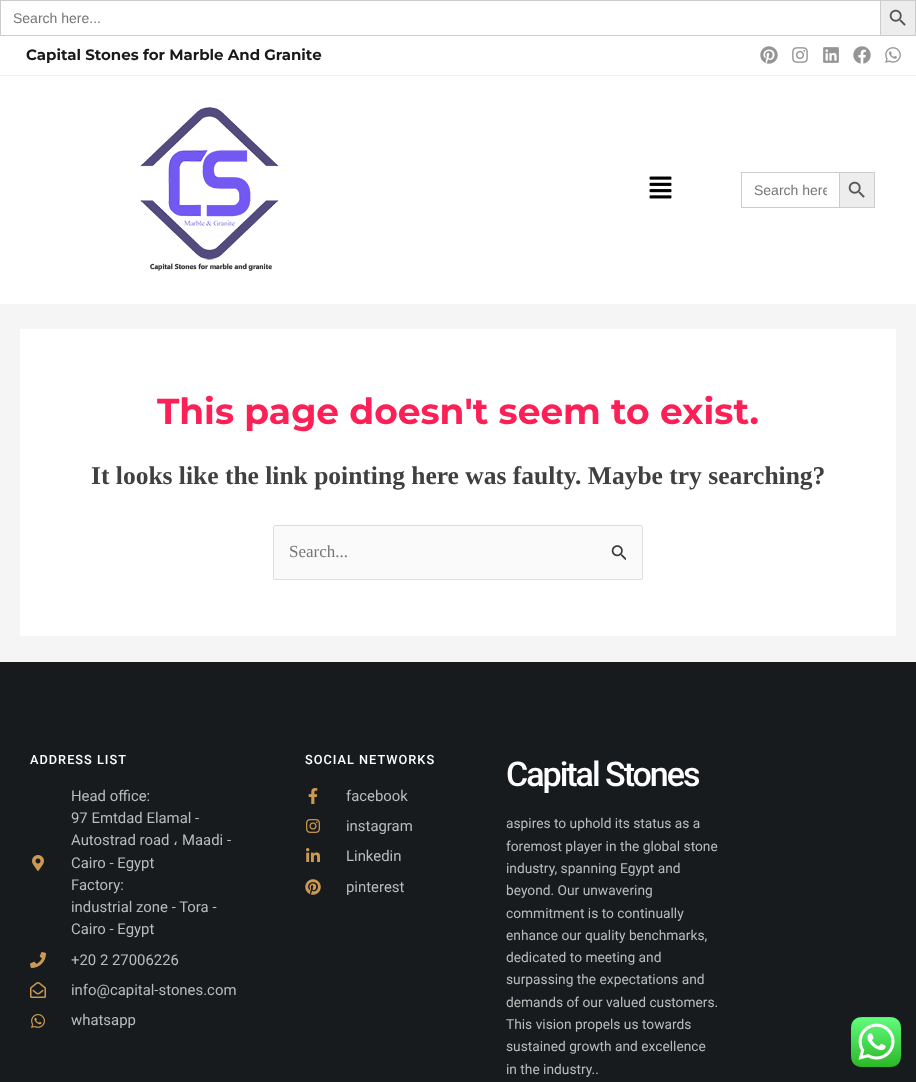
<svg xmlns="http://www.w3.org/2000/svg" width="916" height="1082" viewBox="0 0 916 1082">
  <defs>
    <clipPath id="clip1"><rect x="754" y="182" width="73" height="16"/></clipPath>
  </defs>
  <rect width="100%" height="100%" fill="rgb(245,245,245)"/>
  <rect x="1" y="1" width="879" height="34" fill="rgb(255,255,255)"/>
  <rect x="0" y="0" width="880" height="1" fill="rgb(204,204,204)"/>
  <rect x="0" y="35" width="880" height="1" fill="rgb(204,204,204)"/>
  <rect x="0" y="0" width="1" height="36" fill="rgb(204,204,204)"/>
  <text x="13" y="23" font-family="Liberation Sans" font-size="14" fill="rgb(117,117,117)">Search here...</text>
  <rect x="880.5" y="0.5" width="35" height="35" fill="rgb(237,237,237)" stroke="rgb(204,204,204)"/>
  <image x="889" y="9" width="17" height="17" href="pic1.png"/>
  <rect x="0" y="36" width="916" height="39" fill="rgb(255,255,255)"/>
  <rect x="0" y="75" width="916" height="1" fill="rgb(239,239,239)"/>
  <text x="26" y="60" font-family="Montserrat" font-size="15" font-weight="100" fill="rgb(25,25,25)">Capital Stones for Marble And Granite</text>
  <image x="760" y="46" width="18" height="18" href="pic2.png"/>
  <image x="792" y="47" width="16" height="16" href="pic3.png"/>
  <image x="823" y="47" width="16" height="16" href="pic4.png"/>
  <image x="853" y="46" width="18" height="18" href="pic5.png"/>
  <image x="885" y="47" width="16" height="16" href="pic6.png"/>
  <rect x="0" y="76" width="916" height="228" fill="rgb(255,255,255)"/>
  <image x="140" y="107" width="139" height="164" href="pic7.png"/>
  <image x="649" y="176" width="23" height="23" href="pic8.png"/>
  <rect x="741" y="172" width="98" height="1" fill="rgb(204,204,204)"/>
  <rect x="741" y="207" width="98" height="1" fill="rgb(204,204,204)"/>
  <rect x="741" y="172" width="1" height="36" fill="rgb(204,204,204)"/>
  <g clip-path="url(#clip1)">
    <text x="754" y="195" font-family="Liberation Sans" font-size="14" fill="rgb(117,117,117)">Search here</text>
  </g>
  <rect x="839.5" y="172.5" width="35" height="35" fill="rgb(237,237,237)" stroke="rgb(204,204,204)"/>
  <image x="848" y="181" width="17" height="17" href="pic1.png"/>
  <rect x="20" y="329" width="876" height="307" fill="rgb(255,255,255)"/>
  <text x="157" y="424" font-family="Montserrat" font-size="36" font-weight="100" fill="rgb(251,32,86)">This page doesn't seem to exist.</text>
  <text x="91" y="484" font-family="Liberation Serif" font-size="25.5" font-weight="bold" fill="rgb(64,64,64)">It looks like the link pointing here was faulty. Maybe try searching?</text>
  <rect x="273.5" y="525.5" width="369" height="54" rx="1.5" fill="rgb(250,250,250)" stroke="rgb(221,221,221)"/>
  <text x="289" y="557" font-family="Liberation Serif" font-size="17" fill="rgb(117,117,117)">Search...</text>
  <image x="611" y="545" width="15" height="15" href="pic9.png"/>
  <rect x="0" y="662" width="916" height="420" fill="rgb(24,27,29)"/>
  <text x="30" y="764" font-family="Roboto" font-size="12.75" font-weight="500" letter-spacing="1" fill="rgb(255,255,255)">ADDRESS LIST</text>
  <image x="32" y="855" width="12" height="16" href="pic10.png"/>
  <g font-family="Roboto" font-size="14.9" fill="rgb(186,187,187)">
    <text>
      <tspan x="71" y="801">Head office:</tspan>
      <tspan x="71" y="823">97 Emtdad Elamal -</tspan>
      <tspan x="71" y="845">Autostrad road</tspan>
    </text>
  </g>
  <text x="173" y="845" font-family="DejaVu Sans" font-size="14.9" fill="rgb(186,187,187)">،</text>
  <g font-family="Roboto" font-size="14.9" fill="rgb(186,187,187)">
    <text x="182" y="845">Maadi -</text>
    <text>
      <tspan x="71" y="868">Cairo - Egypt</tspan>
      <tspan x="71" y="890">Factory:</tspan>
      <tspan x="71" y="912">industrial zone - Tora -</tspan>
      <tspan x="71" y="934">Cairo - Egypt</tspan>
    </text>
  </g>
  <image x="30" y="952" width="16" height="16" href="pic11.png"/>
  <text x="71" y="965" font-family="Roboto" font-size="14.9" fill="rgb(186,187,187)">+20 2 27006226</text>
  <image x="30" y="982" width="16" height="16" href="pic12.png"/>
  <text x="71" y="995" font-family="Roboto" font-size="14.9" fill="rgb(186,187,187)">info@capital-stones.com</text>
  <image x="31" y="1014" width="14" height="14" href="pic13.png"/>
  <text x="71" y="1025" font-family="Roboto" font-size="14.9" fill="rgb(186,187,187)">whatsapp</text>
  <text x="305" y="764" font-family="Roboto" font-size="12.75" font-weight="500" letter-spacing="1" fill="rgb(255,255,255)">SOCIAL NETWORKS</text>
  <image x="308" y="788" width="10" height="16" href="pic14.png"/>
  <text x="346" y="801" font-family="Roboto" font-size="14.9" fill="rgb(186,187,187)">facebook</text>
  <image x="306" y="819" width="14" height="14" href="pic15.png"/>
  <text x="346" y="831" font-family="Roboto" font-size="14.9" fill="rgb(186,187,187)">instagram</text>
  <image x="306" y="848" width="14" height="14" href="pic16.png"/>
  <text x="346" y="861" font-family="Roboto" font-size="14.9" fill="rgb(186,187,187)">Linkedin</text>
  <image x="305" y="879" width="16" height="16" href="pic17.png"/>
  <text x="346" y="892" font-family="Roboto" font-size="14.9" fill="rgb(186,187,187)">pinterest</text>
  <text x="506" y="786" font-family="Roboto" font-size="34" font-weight="500" letter-spacing="-2" fill="rgb(255,255,255)">Capital Stones</text>
  <g font-family="Roboto" font-size="13.75" fill="rgb(186,187,187)">
    <text>
      <tspan x="506" y="828">aspires to uphold its status as a</tspan>
      <tspan x="506" y="851">foremost player in the global stone</tspan>
      <tspan x="506" y="873">industry, spanning Egypt and</tspan>
      <tspan x="506" y="895">beyond. Our unwavering</tspan>
      <tspan x="506" y="918">commitment is to continually</tspan>
      <tspan x="506" y="940">enhance our quality benchmarks,</tspan>
      <tspan x="506" y="962">dedicated to meeting and</tspan>
      <tspan x="506" y="984">surpassing the expectations and</tspan>
      <tspan x="506" y="1007">demands of our valued customers.</tspan>
      <tspan x="506" y="1029">This vision propels us towards</tspan>
      <tspan x="506" y="1051">sustained growth and excellence</tspan>
      <tspan x="506" y="1074">in the industry..</tspan>
    </text>
  </g>
  <image x="851" y="1017" width="50" height="50" href="pic18.png"/>
</svg>
